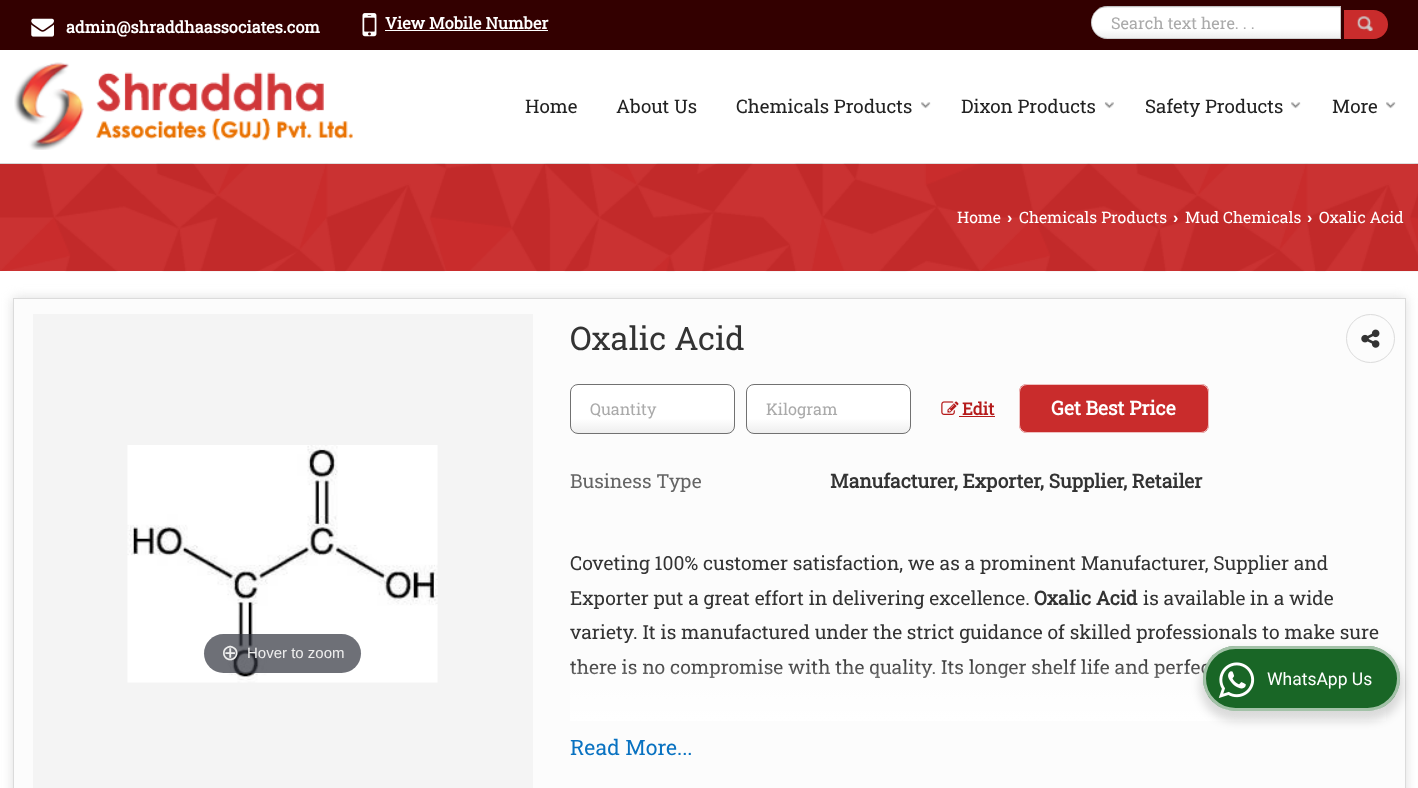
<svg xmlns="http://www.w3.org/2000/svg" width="1418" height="788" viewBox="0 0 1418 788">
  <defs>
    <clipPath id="clip1"><path d="M1107.5 6H1341V39H1107.5C1098.5 39 1091 31.5 1091 22.5C1091 13.5 1098.5 6 1107.5 6Z"/></clipPath>
    <linearGradient id="g1" gradientUnits="userSpaceOnUse" x1="1216" y1="-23" x2="1216" y2="7.5"><stop offset="0.7" stop-color="rgb(255,255,255)"/><stop offset="1" stop-color="rgb(238,238,238)"/></linearGradient>
    <linearGradient id="g2" gradientUnits="userSpaceOnUse" x1="1216" y1="7.5" x2="1216" y2="38"><stop offset="0.7" stop-color="rgb(255,255,255)"/><stop offset="1" stop-color="rgb(238,238,238)"/></linearGradient>
    <linearGradient id="g3" gradientUnits="userSpaceOnUse" x1="1216" y1="37" x2="1216" y2="68"><stop offset="0.7" stop-color="rgb(255,255,255)"/><stop offset="1" stop-color="rgb(238,238,238)"/></linearGradient>
    <clipPath id="clip2"><rect x="570" y="384" width="165" height="50" rx="8"/></clipPath>
    <linearGradient id="g4" gradientUnits="userSpaceOnUse" x1="653" y1="385" x2="653" y2="433"><stop offset="0.7" stop-color="rgb(255,255,255)"/><stop offset="1" stop-color="rgb(238,238,238)"/></linearGradient>
    <clipPath id="clip3"><rect x="746" y="384" width="165" height="50" rx="8"/></clipPath>
    <linearGradient id="g5" gradientUnits="userSpaceOnUse" x1="829" y1="385" x2="829" y2="433"><stop offset="0.7" stop-color="rgb(255,255,255)"/><stop offset="1" stop-color="rgb(238,238,238)"/></linearGradient>
    <linearGradient id="g6" gradientUnits="userSpaceOnUse" x1="978" y1="659" x2="978" y2="721"><stop offset="0" stop-color="rgb(255,255,255)" stop-opacity="0"/><stop offset="1" stop-color="rgb(255,255,255)"/></linearGradient>
  </defs>
  <rect width="100%" height="100%" fill="rgb(255,255,255)"/>
  <rect x="0" y="0" width="1418" height="50" fill="rgb(51,0,0)"/>
  <image x="31" y="18" width="23" height="19" href="pic1.png"/>
  <text x="66" y="33" font-family="Roboto Slab" font-size="16.25" font-weight="bold" fill="rgb(255,255,255)">admin@shraddhaassociates.com</text>
  <image x="362" y="13" width="15" height="24" href="pic2.png"/>
  <text x="385" y="29" font-family="Roboto Slab" font-size="16.25" font-weight="bold" fill="rgb(255,255,255)">View Mobile Number</text>
  <rect x="385" y="30" width="163" height="1" fill="rgb(255,255,255)"/>
  <g clip-path="url(#clip1)">
    <rect x="1091" y="6" width="250" height="2" fill="url(#g1)"/>
    <rect x="1091" y="8" width="250" height="30" fill="url(#g2)"/>
    <rect x="1102" y="38" width="239" height="1" fill="url(#g3)"/>
  </g>
  <path d="M1107.5 6.5H1340.5V38.5H1107.5C1098.5 38.5 1091.5 31.5 1091.5 22.5C1091.5 13.5 1098.5 6.5 1107.5 6.5Z" fill="none" stroke="rgba(0,0,0,0.2)"/>
  <text x="1111" y="29" font-family="Roboto Slab" font-size="16.25" fill="rgb(170,170,170)">Search text here. . .</text>
  <path d="M1344 10H1373.5C1381.5 10 1388 16.5 1388 24.5C1388 32.5 1381.5 39 1373.5 39H1344Z" fill="rgb(201,44,44)"/>
  <image x="1357" y="16" width="16" height="16" href="pic3.png"/>
  <rect x="0" y="163" width="1418" height="1" fill="rgb(222,222,222)"/>
  <image x="14" y="62" width="339" height="88" href="pic4.png"/>
  <g font-family="Roboto Slab" font-size="18.75" fill="rgb(34,34,34)">
    <text x="525" y="113">Home</text>
    <text x="616" y="113">About Us</text>
    <text x="736" y="113">Chemicals Products</text>
  </g>
  <image x="921" y="102" width="10" height="7" href="pic5.png"/>
  <text x="961" y="113" font-family="Roboto Slab" font-size="18.75" fill="rgb(34,34,34)">Dixon Products</text>
  <image x="1104" y="102" width="10" height="7" href="pic6.png"/>
  <text x="1145" y="113" font-family="Roboto Slab" font-size="18.75" fill="rgb(34,34,34)">Safety Products</text>
  <image x="1291" y="102" width="10" height="7" href="pic7.png"/>
  <text x="1332" y="113" font-family="Roboto Slab" font-size="18.75" fill="rgb(34,34,34)">More</text>
  <image x="1386" y="102" width="10" height="7" href="pic5.png"/>
  <rect x="0" y="164" width="1418" height="107" fill="rgb(201,44,44)"/>
  <image x="0" y="163" width="1418" height="109" href="pic8.png"/>
  <text x="957" y="223" font-family="Roboto Slab" font-size="15.75" fill="rgb(255,255,255)">Home</text>
  <text x="1007" y="223" font-family="Liberation Sans" font-size="15.75" font-weight="bold" fill="rgb(255,255,255)">›</text>
  <text x="1019" y="223" font-family="Roboto Slab" font-size="15.75" fill="rgb(255,255,255)">Chemicals Products</text>
  <text x="1173" y="223" font-family="Liberation Sans" font-size="15.75" font-weight="bold" fill="rgb(255,255,255)">›</text>
  <text x="1185" y="223" font-family="Roboto Slab" font-size="15.75" fill="rgb(255,255,255)">Mud Chemicals</text>
  <text x="1307" y="223" font-family="Liberation Sans" font-size="15.75" font-weight="bold" fill="rgb(255,255,255)">›</text>
  <text x="1319" y="223" font-family="Roboto Slab" font-size="15.75" fill="rgb(255,255,255)">Oxalic Acid</text>
  <rect x="13" y="298" width="1393" height="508" fill="rgba(204,204,204,0.67)" filter="blur(6px)"/>
  <rect x="13.5" y="298.5" width="1392" height="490" fill="rgb(252,252,252)" stroke="rgb(219,219,219)"/>
  <rect x="33" y="314" width="500" height="474" fill="rgb(244,244,244)"/>
  <image x="127" y="445" width="311" height="238" href="pic9.png"/>
  <rect x="204" y="634" width="157" height="39" rx="19.5" fill="rgba(49,51,61,0.7)"/>
  <text x="221" y="660" font-family="DejaVu Sans" font-size="22" fill="rgb(238,238,238)">⊕</text>
  <text x="247" y="658" font-family="Liberation Sans" font-size="15" fill="rgb(238,238,238)">Hover to zoom</text>
  <text x="570" y="350" font-family="Roboto Slab" font-size="32.5" fill="rgb(51,51,51)">Oxalic Acid</text>
  <circle cx="1370.5" cy="338.5" r="24" fill="none" stroke="rgb(219,219,219)"/>
  <image x="1361" y="329" width="19" height="19" href="pic10.png"/>
  <g clip-path="url(#clip2)">
    <rect x="570" y="385" width="165" height="48" fill="url(#g4)"/>
  </g>
  <rect x="570.5" y="384.5" width="164" height="49" rx="7.5" fill="none" stroke="rgb(113,113,113)"/>
  <text x="590" y="415" font-family="Roboto Slab" font-size="16.25" fill="rgb(170,170,170)">Quantity</text>
  <g clip-path="url(#clip3)">
    <rect x="746" y="385" width="165" height="48" fill="url(#g5)"/>
  </g>
  <rect x="746.5" y="384.5" width="164" height="49" rx="7.5" fill="none" stroke="rgb(113,113,113)"/>
  <text x="766" y="415" font-family="Roboto Slab" font-size="16.25" fill="rgb(170,170,170)">Kilogram</text>
  <image x="941" y="401" width="18" height="14" href="pic11.png"/>
  <text x="962" y="415" font-family="Roboto Slab" font-size="17" font-weight="bold" fill="rgb(181,27,27)">Edit</text>
  <rect x="959" y="416" width="36" height="1" fill="rgb(181,27,27)"/>
  <rect x="1019" y="384" width="190" height="49" rx="8" fill="rgb(201,44,44)"/>
  <rect x="1019.5" y="384.5" width="189" height="48" rx="7.5" fill="none" stroke="rgba(255,255,255,0.7)"/>
  <text x="1051" y="415" font-family="Roboto Slab" font-size="19.25" font-weight="bold" fill="rgb(255,255,255)">Get Best Price</text>
  <text x="570" y="488" font-family="Roboto Slab" font-size="19.25" fill="rgb(101,101,101)">Business Type</text>
  <text x="830" y="488" font-family="Roboto Slab" font-size="19.25" font-weight="bold" fill="rgb(51,51,51)">Manufacturer, Exporter, Supplier, Retailer</text>
  <g font-family="Roboto Slab" font-size="19.25" fill="rgb(51,51,51)">
    <text>
      <tspan x="570" y="570">Coveting 100% customer satisfaction, we as a prominent Manufacturer, Supplier and</tspan>
      <tspan x="570" y="605">Exporter put a great effort in delivering excellence.</tspan>
    </text>
  </g>
  <text x="1034" y="605" font-family="Roboto Slab" font-size="19.25" font-weight="bold" fill="rgb(51,51,51)">Oxalic Acid</text>
  <g font-family="Roboto Slab" font-size="19.25" fill="rgb(51,51,51)">
    <text x="1143" y="605">is available in a wide</text>
    <text>
      <tspan x="570" y="639">variety. It is manufactured under the strict guidance of skilled professionals to make sure</tspan>
      <tspan x="570" y="674">there is no compromise with the quality. Its longer shelf life and perfec</tspan>
    </text>
  </g>
  <rect x="570" y="660" width="816" height="61" fill="url(#g6)"/>
  <text x="570" y="755" font-family="Roboto Slab" font-size="21.25" fill="rgb(9,114,193)">Read More...</text>
  <rect x="1200" y="651" width="203" height="70" rx="35" fill="rgba(0,0,0,0.14)" filter="blur(5px)"/>
  <rect x="1203" y="646" width="197" height="65" rx="32.5" fill="rgb(25,102,38)"/>
  <rect x="1204.5" y="647.5" width="194" height="62" rx="31" fill="none" stroke="rgba(255,255,255,0.6)" stroke-width="3"/>
  <image x="1218" y="662" width="37" height="36" href="pic12.png"/>
  <text x="1267" y="685" font-family="Roboto" font-size="17.5" fill="rgb(255,255,255)">WhatsApp Us</text>
</svg>
